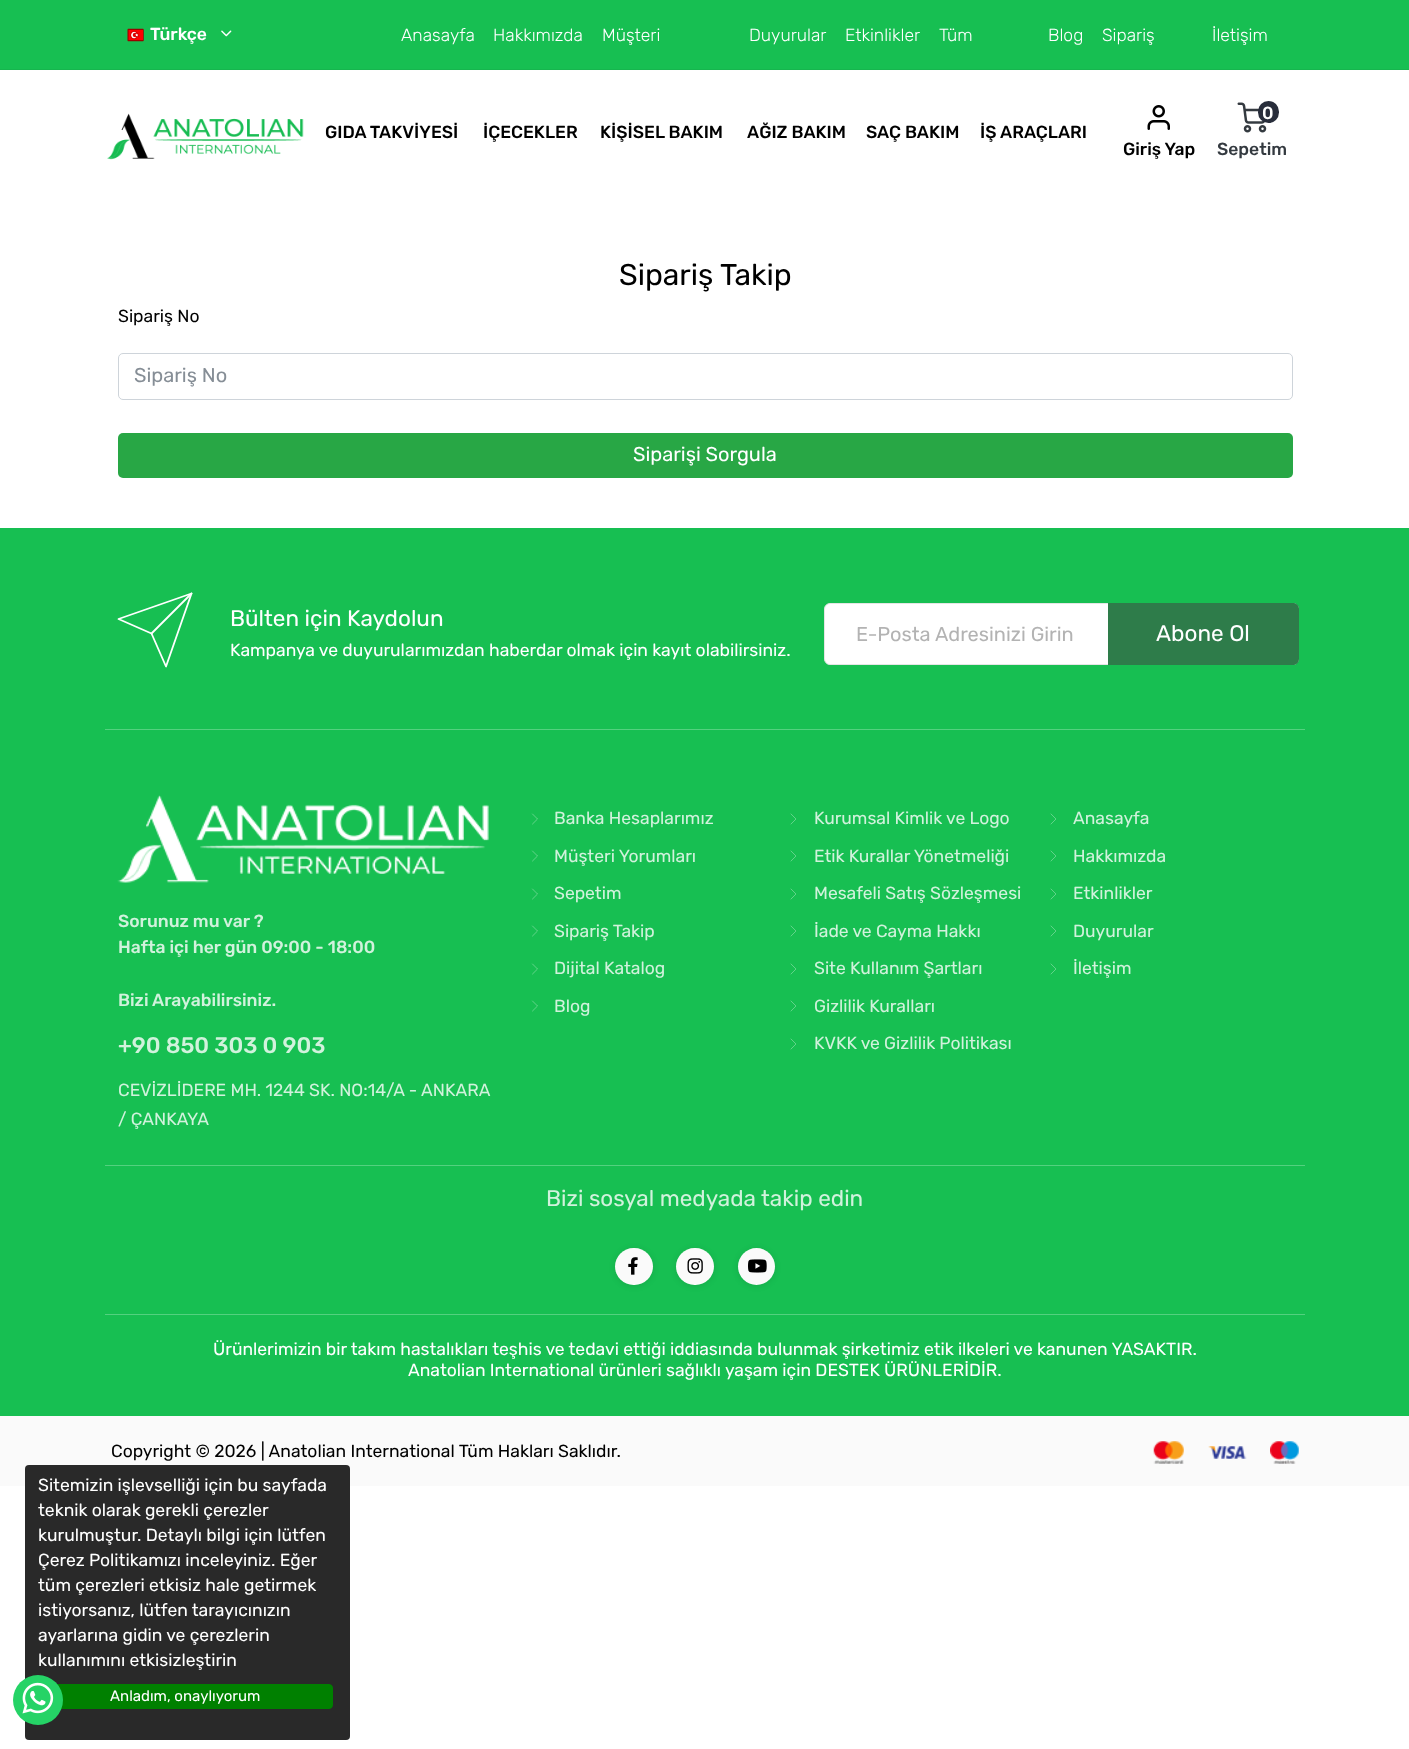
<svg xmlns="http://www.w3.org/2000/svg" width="1409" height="1749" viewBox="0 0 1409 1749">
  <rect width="100%" height="100%" fill="rgb(255,255,255)"/>
  <rect x="0" y="0" width="1409" height="69" fill="rgb(23,191,82)"/>
  <rect x="0" y="69" width="1409" height="1" fill="rgb(22,181,78)"/>
  <image x="127" y="28" width="17" height="14" href="pic1.png"/>
  <text x="150" y="40" font-family="Rubik" font-size="17.5" font-weight="500" fill="rgb(255,255,255)">Türkçe</text>
  <image x="221" y="30" width="11" height="7" href="pic2.png"/>
  <g font-family="Rubik" font-size="17.5" font-weight="300" fill="rgb(255,255,255)">
    <text x="401" y="41">Anasayfa</text>
    <text x="493" y="41">Hakkımızda</text>
    <text x="602" y="41">Müşteri</text>
    <text x="749" y="41">Duyurular</text>
    <text x="845" y="41">Etkinlikler</text>
    <text x="939" y="41">Tüm</text>
    <text x="1048" y="41">Blog</text>
    <text x="1102" y="41">Sipariş</text>
    <text x="1212" y="41">İletişim</text>
  </g>
  <image x="107" y="113" width="197" height="47" href="pic3.png"/>
  <g font-family="Rubik" font-size="17.5" font-weight="500" fill="rgb(0,0,0)">
    <text x="325" y="138">GIDA TAKVİYESİ</text>
    <text x="483" y="138">İÇECEKLER</text>
    <text x="600" y="138">KİŞİSEL BAKIM</text>
    <text x="747" y="138">AĞIZ BAKIM</text>
    <text x="866" y="138">SAÇ BAKIM</text>
    <text x="980" y="138">İŞ ARAÇLARI</text>
  </g>
  <image x="1147" y="105" width="23" height="25" href="pic4.png"/>
  <text x="1123" y="155" font-family="Rubik" font-size="17.5" font-weight="500" fill="rgb(0,0,0)">Giriş Yap</text>
  <image x="1237" y="102" width="30" height="31" href="pic5.png"/>
  <rect x="1258" y="101" width="21" height="22" rx="10.5" fill="rgb(40,45,59)"/>
  <text x="1262" y="119" font-family="Rubik" font-size="17.5" font-weight="500" fill="rgb(255,255,255)">0</text>
  <text x="1217" y="155" font-family="Rubik" font-size="17.5" font-weight="500" fill="rgb(52,58,64)">Sepetim</text>
  <text x="619" y="285" font-family="Rubik" font-size="30" fill="rgb(0,0,0)">Sipariş Takip</text>
  <text x="118" y="322" font-family="Rubik" font-size="17.5" fill="rgb(0,0,0)">Sipariş No</text>
  <rect x="118.5" y="353.5" width="1174" height="46" rx="4.5" fill="none" stroke="rgb(206,212,218)"/>
  <text x="134" y="382" font-family="Rubik" font-size="20" fill="rgb(134,142,150)">Sipariş No</text>
  <rect x="118" y="433" width="1175" height="45" rx="5" fill="rgb(40,167,69)"/>
  <text x="633" y="461" font-family="Rubik" font-size="20" fill="rgb(255,255,255)">Siparişi Sorgula</text>
  <rect x="0" y="528" width="1409" height="888" fill="rgb(23,191,82)"/>
  <rect x="105" y="729" width="1200" height="1" fill="rgb(83,209,127)"/>
  <path d="M191.5 593.5L151.5 633.5" fill="none" stroke="rgb(255,255,255)" stroke-width="1.8" stroke-linecap="round" stroke-linejoin="round"/>
  <path d="M191.5 593.5L166 666.5L151.5 633.5L118.5 619Z" fill="none" stroke="rgb(255,255,255)" stroke-width="1.8" stroke-linecap="round" stroke-linejoin="round"/>
  <text x="230" y="626" font-family="Rubik" font-size="22.5" fill="rgb(255,255,255)">Bülten için Kaydolun</text>
  <text x="230" y="656" font-family="Rubik" font-size="17.5" fill="rgb(255,255,255)">Kampanya ve duyurularımızdan haberdar olmak için kayıt olabilirsiniz.</text>
  <rect x="824.5" y="603.5" width="474" height="61" rx="5.5" fill="rgb(255,255,255)" stroke="rgb(229,229,229)"/>
  <text x="856" y="641" font-family="Rubik" font-size="20" fill="rgb(179,179,179)">E-Posta Adresinizi Girin</text>
  <path d="M1108 603H1293C1296.5 603 1299 605.5 1299 609V659C1299 662.5 1296.5 665 1293 665H1108Z" fill="rgb(46,124,74)"/>
  <text x="1156" y="641" font-family="Rubik" font-size="22.5" fill="rgb(255,255,255)">Abone Ol</text>
  <image x="117" y="795" width="372" height="88" href="pic6.png"/>
  <g font-family="Rubik" font-size="17.5" font-weight="500" fill="rgb(209,242,220)">
    <text>
      <tspan x="118" y="927">Sorunuz mu var ?</tspan>
      <tspan x="118" y="953">Hafta içi her gün 09:00 - 18:00</tspan>
    </text>
    <text x="118" y="1006">Bizi Arayabilirsiniz.</text>
  </g>
  <text x="118" y="1053" font-family="Rubik" font-size="22.5" font-weight="500" fill="rgb(209,242,220)">+90 850 303 0 903</text>
  <g font-family="Rubik" font-size="17.5" fill="rgb(209,242,220)">
    <text>
      <tspan x="118" y="1096">CEVİZLİDERE MH. 1244 SK. NO:14/A - ANKARA</tspan>
      <tspan x="118" y="1125">/ ÇANKAYA</tspan>
    </text>
    <text x="554" y="824">Banka Hesaplarımız</text>
  </g>
  <path d="M532.5 824L537.5 819L532.5 814" fill="none" stroke="rgb(209,242,220)" stroke-width="0.4" stroke-linecap="round" stroke-linejoin="round"/>
  <text x="554" y="862" font-family="Rubik" font-size="17.5" fill="rgb(209,242,220)">Müşteri Yorumları</text>
  <path d="M532.5 861L537.5 856L532.5 851" fill="none" stroke="rgb(209,242,220)" stroke-width="0.4" stroke-linecap="round" stroke-linejoin="round"/>
  <text x="554" y="899" font-family="Rubik" font-size="17.5" fill="rgb(209,242,220)">Sepetim</text>
  <path d="M532.5 899L537.5 894L532.5 889" fill="none" stroke="rgb(209,242,220)" stroke-width="0.4" stroke-linecap="round" stroke-linejoin="round"/>
  <text x="554" y="937" font-family="Rubik" font-size="17.5" fill="rgb(209,242,220)">Sipariş Takip</text>
  <path d="M532.5 936L537.5 931L532.5 926" fill="none" stroke="rgb(209,242,220)" stroke-width="0.4" stroke-linecap="round" stroke-linejoin="round"/>
  <text x="554" y="974" font-family="Rubik" font-size="17.5" fill="rgb(209,242,220)">Dijital Katalog</text>
  <path d="M532.5 974L537.5 969L532.5 964" fill="none" stroke="rgb(209,242,220)" stroke-width="0.4" stroke-linecap="round" stroke-linejoin="round"/>
  <text x="554" y="1012" font-family="Rubik" font-size="17.5" fill="rgb(209,242,220)">Blog</text>
  <path d="M532.5 1011L537.5 1006L532.5 1001" fill="none" stroke="rgb(209,242,220)" stroke-width="0.4" stroke-linecap="round" stroke-linejoin="round"/>
  <text x="814" y="824" font-family="Rubik" font-size="17.5" fill="rgb(209,242,220)">Kurumsal Kimlik ve Logo</text>
  <path d="M791 824L796 819L791 814" fill="none" stroke="rgb(209,242,220)" stroke-width="0.4" stroke-linecap="round" stroke-linejoin="round"/>
  <text x="814" y="862" font-family="Rubik" font-size="17.5" fill="rgb(209,242,220)">Etik Kurallar Yönetmeliği</text>
  <path d="M791 861L796 856L791 851" fill="none" stroke="rgb(209,242,220)" stroke-width="0.4" stroke-linecap="round" stroke-linejoin="round"/>
  <text x="814" y="899" font-family="Rubik" font-size="17.5" fill="rgb(209,242,220)">Mesafeli Satış Sözleşmesi</text>
  <path d="M791 899L796 894L791 889" fill="none" stroke="rgb(209,242,220)" stroke-width="0.4" stroke-linecap="round" stroke-linejoin="round"/>
  <text x="814" y="937" font-family="Rubik" font-size="17.5" fill="rgb(209,242,220)">İade ve Cayma Hakkı</text>
  <path d="M791 936L796 931L791 926" fill="none" stroke="rgb(209,242,220)" stroke-width="0.4" stroke-linecap="round" stroke-linejoin="round"/>
  <text x="814" y="974" font-family="Rubik" font-size="17.5" fill="rgb(209,242,220)">Site Kullanım Şartları</text>
  <path d="M791 974L796 969L791 964" fill="none" stroke="rgb(209,242,220)" stroke-width="0.4" stroke-linecap="round" stroke-linejoin="round"/>
  <text x="814" y="1012" font-family="Rubik" font-size="17.5" fill="rgb(209,242,220)">Gizlilik Kuralları</text>
  <path d="M791 1011L796 1006L791 1001" fill="none" stroke="rgb(209,242,220)" stroke-width="0.4" stroke-linecap="round" stroke-linejoin="round"/>
  <text x="814" y="1049" font-family="Rubik" font-size="17.5" fill="rgb(209,242,220)">KVKK ve Gizlilik Politikası</text>
  <path d="M791 1049L796 1044L791 1039" fill="none" stroke="rgb(209,242,220)" stroke-width="0.4" stroke-linecap="round" stroke-linejoin="round"/>
  <text x="1073" y="824" font-family="Rubik" font-size="17.5" fill="rgb(209,242,220)">Anasayfa</text>
  <path d="M1051 824L1056 819L1051 814" fill="none" stroke="rgb(209,242,220)" stroke-width="0.4" stroke-linecap="round" stroke-linejoin="round"/>
  <text x="1073" y="862" font-family="Rubik" font-size="17.5" fill="rgb(209,242,220)">Hakkımızda</text>
  <path d="M1051 861L1056 856L1051 851" fill="none" stroke="rgb(209,242,220)" stroke-width="0.4" stroke-linecap="round" stroke-linejoin="round"/>
  <text x="1073" y="899" font-family="Rubik" font-size="17.5" fill="rgb(209,242,220)">Etkinlikler</text>
  <path d="M1051 899L1056 894L1051 889" fill="none" stroke="rgb(209,242,220)" stroke-width="0.4" stroke-linecap="round" stroke-linejoin="round"/>
  <text x="1073" y="937" font-family="Rubik" font-size="17.5" fill="rgb(209,242,220)">Duyurular</text>
  <path d="M1051 936L1056 931L1051 926" fill="none" stroke="rgb(209,242,220)" stroke-width="0.4" stroke-linecap="round" stroke-linejoin="round"/>
  <text x="1073" y="974" font-family="Rubik" font-size="17.5" fill="rgb(209,242,220)">İletişim</text>
  <path d="M1051 974L1056 969L1051 964" fill="none" stroke="rgb(209,242,220)" stroke-width="0.4" stroke-linecap="round" stroke-linejoin="round"/>
  <rect x="105" y="1165" width="1200" height="1" fill="rgb(83,209,127)"/>
  <text x="546" y="1206" font-family="Rubik" font-size="22.5" fill="rgb(209,242,220)">Bizi sosyal medyada takip edin</text>
  <rect x="615" y="1249" width="38" height="37" rx="18.5" fill="rgba(0,0,0,0.1)" filter="blur(3px)"/>
  <rect x="615" y="1248" width="38" height="37" rx="18.5" fill="rgb(250,250,250)"/>
  <image x="628" y="1257" width="10" height="18" href="pic7.png"/>
  <rect x="676" y="1249" width="38" height="37" rx="18.5" fill="rgba(0,0,0,0.1)" filter="blur(3px)"/>
  <rect x="676" y="1248" width="38" height="37" rx="18.5" fill="rgb(250,250,250)"/>
  <image x="687" y="1258" width="16" height="16" href="pic8.png"/>
  <rect x="738" y="1249" width="37" height="37" rx="18.5" fill="rgba(0,0,0,0.1)" filter="blur(3px)"/>
  <circle cx="756.5" cy="1266.5" r="18.5" fill="rgb(250,250,250)"/>
  <image x="748" y="1259" width="19" height="14" href="pic9.png"/>
  <rect x="105" y="1314" width="1200" height="1" fill="rgb(83,209,127)"/>
  <g font-family="Rubik" font-size="17.5" fill="rgb(255,255,255)">
    <text x="213" y="1355">Ürünlerimizin bir takım hastalıkları teşhis ve tedavi ettiği iddiasında bulunmak şirketimiz etik ilkeleri ve kanunen YASAKTIR.</text>
    <text x="408" y="1376">Anatolian International ürünleri sağlıklı yaşam için DESTEK ÜRÜNLERİDİR.</text>
  </g>
  <rect x="0" y="1416" width="1409" height="70" fill="rgb(250,250,250)"/>
  <text x="111" y="1457" font-family="Rubik" font-size="17.5" fill="rgb(0,0,0)">Copyright © 2026 | Anatolian International Tüm Hakları Saklıdır.</text>
  <image x="1153" y="1441" width="31" height="23" href="pic10.png"/>
  <image x="1208" y="1446" width="39" height="13" href="pic11.png"/>
  <image x="1270" y="1441" width="29" height="23" href="pic12.png"/>
  <rect x="25" y="1465" width="325" height="275" rx="4" fill="rgb(41,41,41)"/>
  <g font-family="Rubik" font-size="17.5" fill="rgb(255,255,255)">
    <text>
      <tspan x="38" y="1491">Sitemizin işlevselliği için bu sayfada</tspan>
      <tspan x="38" y="1516">teknik olarak gerekli çerezler</tspan>
      <tspan x="38" y="1541">kurulmuştur. Detaylı bilgi için lütfen</tspan>
      <tspan x="38" y="1566">Çerez Politikamızı inceleyiniz. Eğer</tspan>
      <tspan x="38" y="1591">tüm çerezleri etkisiz hale getirmek</tspan>
      <tspan x="38" y="1616">istiyorsanız, lütfen tarayıcınızın</tspan>
      <tspan x="38" y="1641">ayarlarına gidin ve çerezlerin</tspan>
      <tspan x="38" y="1666">kullanımını etkisizleştirin</tspan>
    </text>
  </g>
  <rect x="38.5" y="1684.5" width="294" height="24" rx="3.5" fill="rgb(0,128,0)" stroke="rgb(0,128,0)"/>
  <text x="110" y="1701" font-family="Rubik" font-size="15" fill="rgb(255,255,255)">Anladım, onaylıyorum</text>
  <circle cx="38" cy="1700" r="25" fill="rgb(37,211,102)"/>
  <image x="22" y="1682" width="32" height="32" href="pic13.png"/>
</svg>
